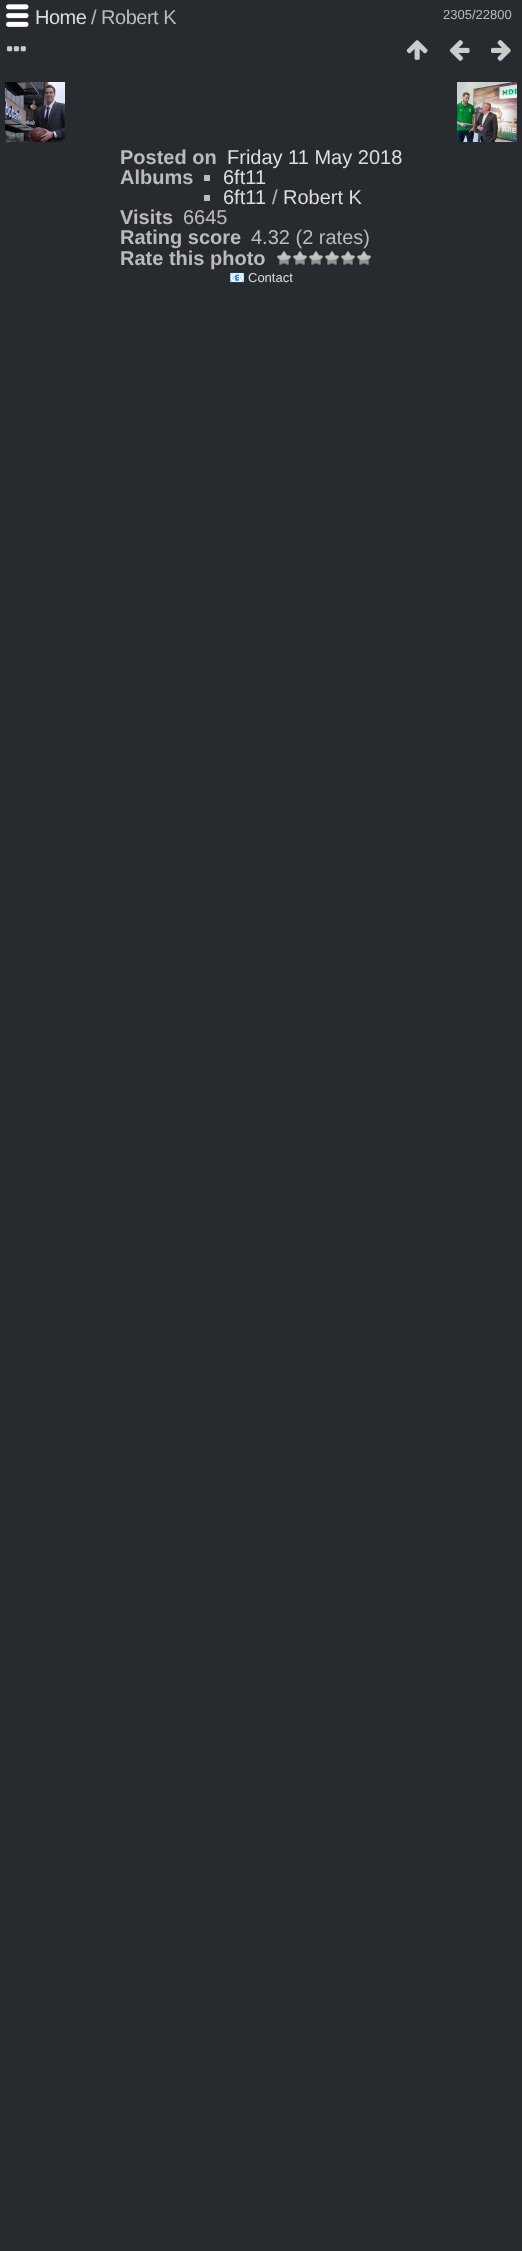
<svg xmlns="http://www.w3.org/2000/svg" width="522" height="2251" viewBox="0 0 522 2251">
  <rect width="100%" height="100%" fill="rgb(39,43,48)"/>
  <image x="6" y="4" width="23" height="23" href="pic1.png"/>
  <text x="35" y="24" font-family="Liberation Sans" font-size="20" letter-spacing="-0.5" fill="rgb(221,221,221)">Home</text>
  <text x="91" y="24" font-family="Liberation Sans" font-size="20" letter-spacing="-0.5" fill="rgb(187,187,187)">/ Robert K</text>
  <text x="443" y="19" font-family="Liberation Sans" font-size="13" fill="rgb(187,187,187)">2305/22800</text>
  <image x="7" y="46" width="19" height="6" href="pic2.png"/>
  <image x="406" y="40" width="22" height="20" href="pic3.png"/>
  <image x="449" y="40" width="21" height="21" href="pic4.png"/>
  <image x="491" y="40" width="20" height="21" href="pic5.png"/>
  <image x="5" y="82" width="60" height="60" href="pic6.png"/>
  <image x="457" y="82" width="60" height="60" href="pic7.png"/>
  <text x="120" y="164" font-family="Liberation Sans" font-size="20" font-weight="bold" fill="rgb(187,187,187)">Posted on</text>
  <text x="227" y="164" font-family="Liberation Sans" font-size="20" fill="rgb(221,221,221)">Friday 11 May 2018</text>
  <text x="120" y="184" font-family="Liberation Sans" font-size="20" font-weight="bold" fill="rgb(187,187,187)">Albums</text>
  <rect x="204" y="175" width="6" height="6" fill="rgb(187,187,187)"/>
  <text x="223" y="184" font-family="Liberation Sans" font-size="20" fill="rgb(221,221,221)">6ft11</text>
  <rect x="204" y="195" width="6" height="6" fill="rgb(187,187,187)"/>
  <text x="223" y="204" font-family="Liberation Sans" font-size="20" fill="rgb(221,221,221)">6ft11</text>
  <text x="272" y="204" font-family="Liberation Sans" font-size="20" fill="rgb(187,187,187)">/</text>
  <text x="283" y="204" font-family="Liberation Sans" font-size="20" fill="rgb(221,221,221)">Robert K</text>
  <text x="120" y="224" font-family="Liberation Sans" font-size="20" font-weight="bold" fill="rgb(187,187,187)">Visits</text>
  <text x="183" y="224" font-family="Liberation Sans" font-size="20" fill="rgb(187,187,187)">6645</text>
  <text x="120" y="244" font-family="Liberation Sans" font-size="20" font-weight="bold" fill="rgb(187,187,187)">Rating score</text>
  <text x="251" y="244" font-family="Liberation Sans" font-size="20" fill="rgb(187,187,187)">4.32 (2 rates)</text>
  <text x="120" y="265" font-family="Liberation Sans" font-size="20" font-weight="bold" fill="rgb(187,187,187)">Rate this photo</text>
  <image x="276" y="251" width="16" height="14" href="pic8.png"/>
  <image x="292" y="251" width="16" height="14" href="pic8.png"/>
  <image x="308" y="251" width="16" height="14" href="pic8.png"/>
  <image x="324" y="251" width="16" height="14" href="pic8.png"/>
  <image x="340" y="251" width="16" height="14" href="pic8.png"/>
  <image x="356" y="251" width="16" height="14" href="pic8.png"/>
  <text x="229" y="282" font-family="Noto Color Emoji" font-size="13" fill="rgb(221,221,221)">📧</text>
  <text x="248" y="282" font-family="Liberation Sans" font-size="13" fill="rgb(221,221,221)">Contact</text>
</svg>
